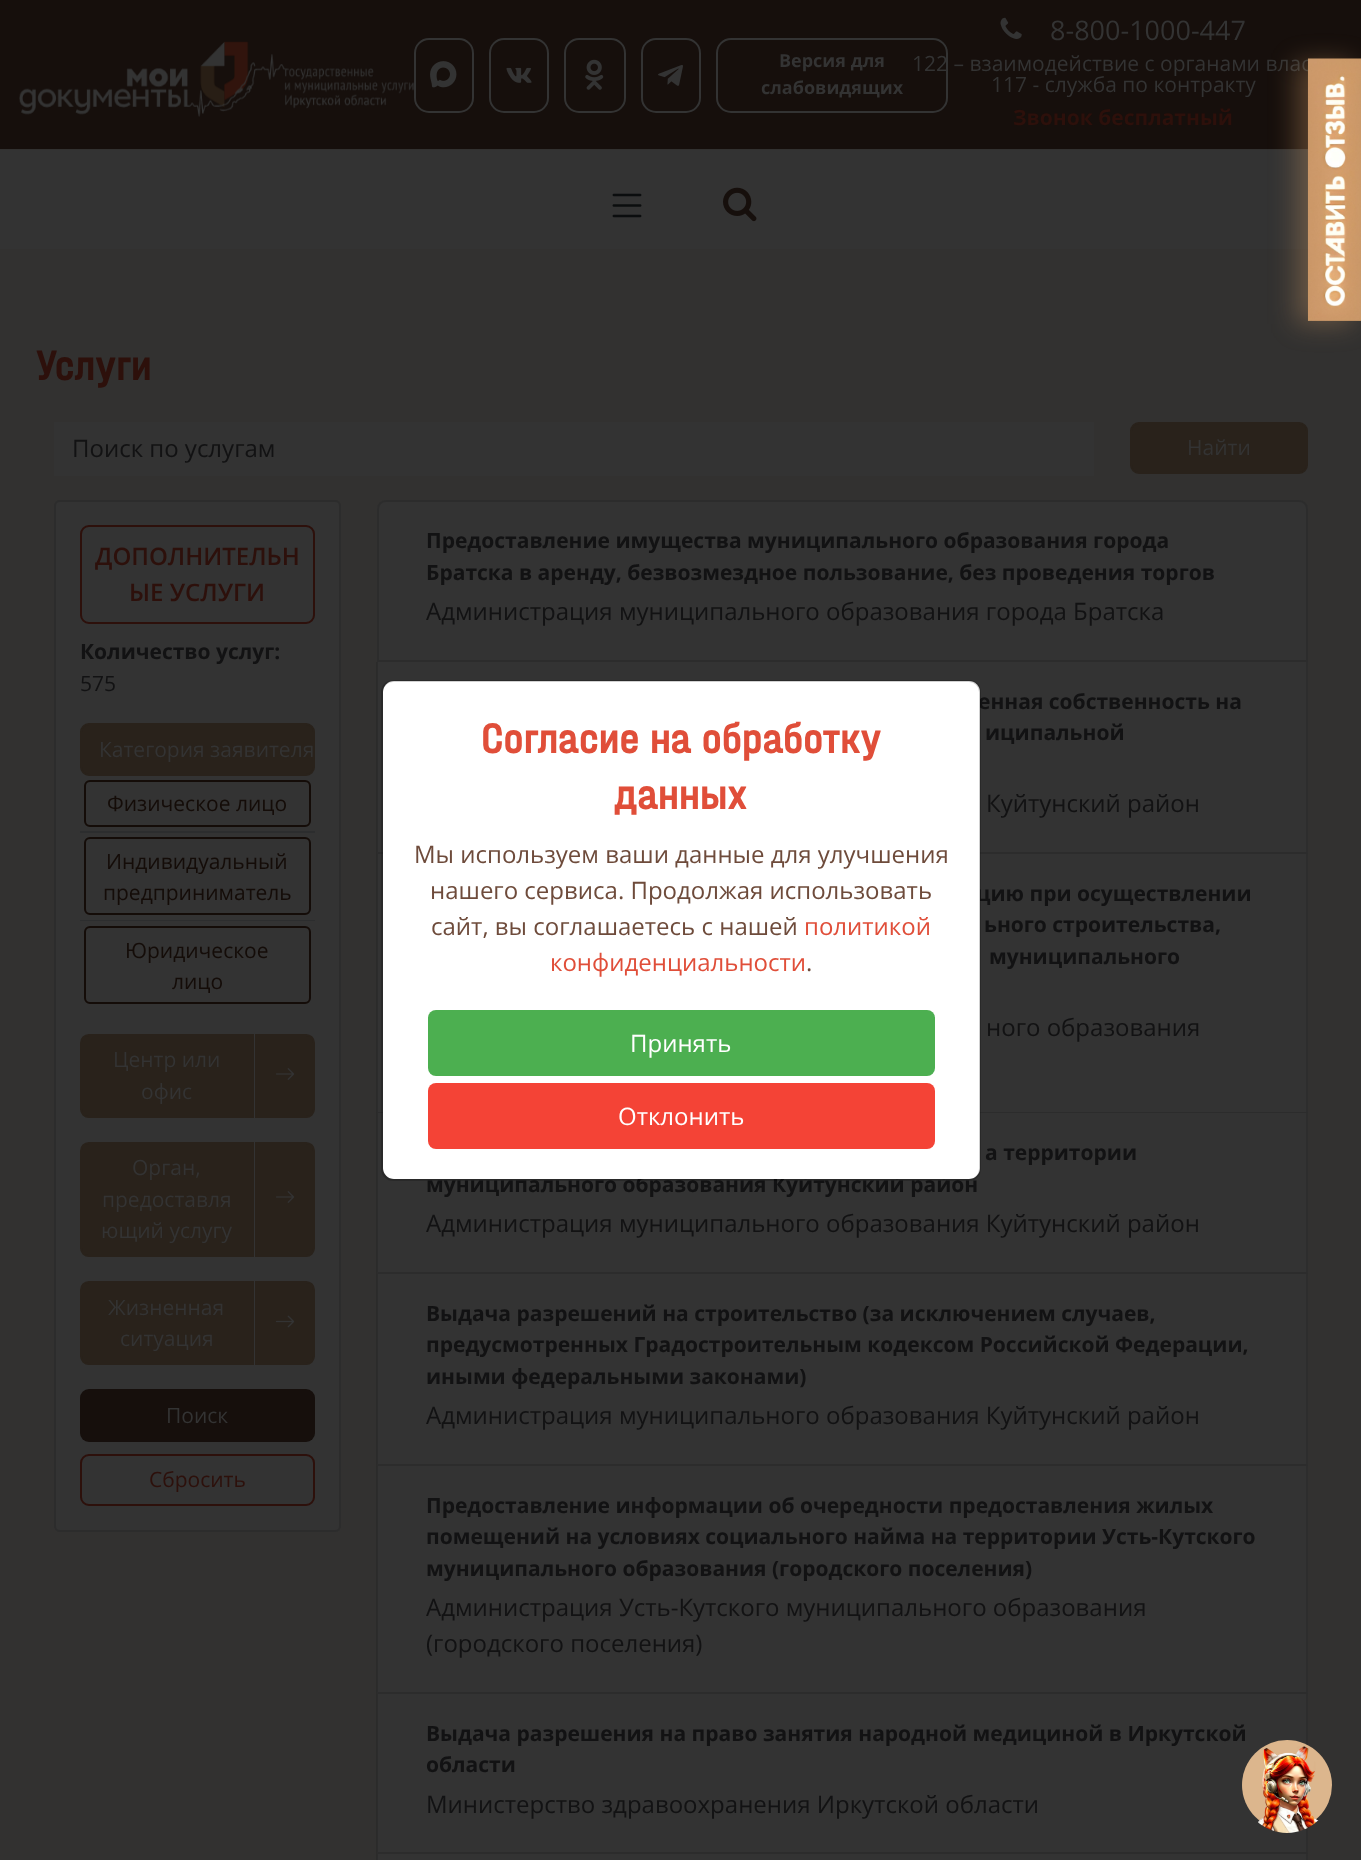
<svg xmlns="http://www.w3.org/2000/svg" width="1361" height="1860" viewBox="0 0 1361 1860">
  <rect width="100%" height="100%" fill="rgb(50,49,48)"/>
  <rect x="0" y="0" width="1361" height="149" fill="rgb(22,15,12)"/>
  <image x="19" y="41" width="395" height="76" href="pic1.png"/>
  <rect x="415" y="39" width="58" height="73" rx="14" fill="none" stroke="rgb(51,51,51)" stroke-width="2"/>
  <image x="430" y="61" width="27" height="27" href="pic2.png"/>
  <rect x="490" y="39" width="58" height="73" rx="14" fill="none" stroke="rgb(51,51,51)" stroke-width="2"/>
  <image x="506" y="67" width="26" height="16" href="pic3.png"/>
  <rect x="565" y="39" width="60" height="73" rx="14" fill="none" stroke="rgb(51,51,51)" stroke-width="2"/>
  <image x="585" y="59" width="19" height="31" href="pic4.png"/>
  <rect x="642" y="39" width="58" height="73" rx="14" fill="none" stroke="rgb(51,51,51)" stroke-width="2"/>
  <image x="658" y="64" width="25" height="22" href="pic5.png"/>
  <rect x="717" y="39" width="230" height="73" rx="14" fill="none" stroke="rgb(51,51,51)" stroke-width="2"/>
  <g font-family="Open Sans" font-size="18" font-weight="bold" fill="rgb(51,51,51)">
    <text x="779" y="67">Версия для</text>
    <text x="761" y="94">слабовидящих</text>
  </g>
  <image x="1000" y="17" width="22" height="22" href="pic6.png"/>
  <text x="1050" y="40" font-family="Open Sans" font-size="27" fill="rgb(51,51,51)">8-800-1000-447</text>
  <g font-family="Open Sans" font-size="21" fill="rgb(51,51,51)">
    <text x="912" y="71">122 – взаимодействие с органами влас</text>
    <text x="991" y="92">117 - служба по контракту</text>
  </g>
  <text x="1013" y="125" font-family="Open Sans" font-size="21" font-weight="bold" fill="rgb(45,16,11)">Звонок бесплатный</text>
  <rect x="0" y="150" width="1308" height="99" fill="rgb(51,51,51)"/>
  <image x="612" y="193" width="30" height="25" href="pic7.png"/>
  <image x="723" y="187" width="34" height="35" href="pic8.png"/>
  <rect x="1296" y="62" width="56" height="262" fill="rgba(202,152,103,0.36)" filter="blur(13px)"/>
  <image x="1307" y="58" width="54" height="263" href="pic9.png"/>
  <text x="36" y="380" font-family="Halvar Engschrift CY" font-size="45" font-weight="500" fill="rgb(45,16,11)">Услуги</text>
  <rect x="54" y="422" width="1040" height="54" fill="rgb(51,51,51)"/>
  <text x="72" y="457" font-family="Open Sans" font-size="24" fill="rgb(18,18,19)">Поиск по услугам</text>
  <rect x="1131" y="423" width="176" height="50" rx="8" fill="rgb(41,34,27)" stroke="rgb(41,34,27)" stroke-width="2"/>
  <text x="1187" y="455" font-family="Open Sans" font-size="21" fill="rgb(51,51,51)">Найти</text>
  <rect x="54" y="500" width="287" height="1032" rx="6" fill="rgb(51,51,51)"/>
  <rect x="55" y="501" width="285" height="1030" rx="5" fill="none" stroke="rgba(0,0,0,0.12)" stroke-width="2"/>
  <rect x="81" y="526" width="233" height="97" rx="8" fill="none" stroke="rgb(45,16,11)" stroke-width="2"/>
  <g font-family="Open Sans" font-size="24" font-weight="600" fill="rgb(45,16,11)">
    <text x="95" y="565">ДОПОЛНИТЕЛЬН</text>
    <text x="129" y="601">ЫЕ УСЛУГИ</text>
  </g>
  <text x="80" y="659" font-family="Open Sans" font-size="21" font-weight="bold" fill="rgb(18,18,19)">Количество услуг:</text>
  <text x="80" y="691" font-family="Open Sans" font-size="21" fill="rgb(18,18,19)">575</text>
  <rect x="81" y="724" width="233" height="51" rx="8" fill="rgb(41,34,27)" stroke="rgb(41,34,27)" stroke-width="2"/>
  <text x="99" y="757" font-family="Open Sans" font-size="21" fill="rgb(51,51,51)">Категория заявителя</text>
  <rect x="80" y="831" width="235" height="2" fill="rgb(44,45,46)"/>
  <rect x="85" y="781" width="225" height="45" rx="5" fill="none" stroke="rgb(20,12,8)" stroke-width="2"/>
  <text x="107" y="811" font-family="Open Sans" font-size="21" fill="rgb(20,12,8)">Физическое лицо</text>
  <rect x="80" y="920" width="235" height="1" fill="rgb(44,45,46)"/>
  <rect x="85" y="838" width="225" height="76" rx="5" fill="none" stroke="rgb(20,12,8)" stroke-width="2"/>
  <g font-family="Open Sans" font-size="21" fill="rgb(20,12,8)">
    <text x="106" y="869">Индивидуальный</text>
    <text x="103" y="900">предприниматель</text>
  </g>
  <rect x="85" y="927" width="225" height="76" rx="5" fill="none" stroke="rgb(20,12,8)" stroke-width="2"/>
  <g font-family="Open Sans" font-size="21" fill="rgb(20,12,8)">
    <text x="125" y="958">Юридическое</text>
    <text x="172" y="989">лицо</text>
  </g>
  <path d="M89 1035H253V1117H89C84.5 1117 81 1113.5 81 1109V1043C81 1038.5 84.5 1035 89 1035Z" fill="rgb(41,34,27)" stroke="rgb(41,34,27)" stroke-width="2"/>
  <g font-family="Open Sans" font-size="21" fill="rgb(51,51,51)">
    <text x="113" y="1067">Центр или</text>
    <text x="141" y="1099">офис</text>
  </g>
  <path d="M256 1035H306C310.5 1035 314 1038.5 314 1043V1109C314 1113.5 310.5 1117 306 1117H256Z" fill="rgb(41,34,27)" stroke="rgb(41,34,27)" stroke-width="2"/>
  <image x="275" y="1068" width="20" height="12" href="pic10.png"/>
  <path d="M89 1143H253V1256H89C84.5 1256 81 1252.5 81 1248V1151C81 1146.5 84.5 1143 89 1143Z" fill="rgb(41,34,27)" stroke="rgb(41,34,27)" stroke-width="2"/>
  <g font-family="Open Sans" font-size="21" fill="rgb(51,51,51)">
    <text x="132" y="1175">Орган,</text>
    <text x="102" y="1207">предоставля</text>
    <text x="101" y="1238">ющий услугу</text>
  </g>
  <path d="M256 1143H306C310.5 1143 314 1146.5 314 1151V1248C314 1252.5 310.5 1256 306 1256H256Z" fill="rgb(41,34,27)" stroke="rgb(41,34,27)" stroke-width="2"/>
  <image x="275" y="1191" width="20" height="12" href="pic10.png"/>
  <path d="M89 1282H253V1364H89C84.5 1364 81 1360.5 81 1356V1290C81 1285.5 84.5 1282 89 1282Z" fill="rgb(41,34,27)" stroke="rgb(41,34,27)" stroke-width="2"/>
  <g font-family="Open Sans" font-size="21" fill="rgb(51,51,51)">
    <text x="108" y="1315">Жизненная</text>
    <text x="120" y="1346">ситуация</text>
  </g>
  <path d="M256 1282H306C310.5 1282 314 1285.5 314 1290V1356C314 1360.5 310.5 1364 306 1364H256Z" fill="rgb(41,34,27)" stroke="rgb(41,34,27)" stroke-width="2"/>
  <image x="275" y="1315" width="20" height="13" href="pic11.png"/>
  <rect x="80" y="1389" width="235" height="53" rx="9" fill="rgb(22,15,12)"/>
  <text x="166" y="1423" font-family="Open Sans" font-size="21" fill="rgb(51,51,51)">Поиск</text>
  <rect x="81" y="1455" width="233" height="50" rx="8" fill="none" stroke="rgb(45,16,11)" stroke-width="2"/>
  <text x="149" y="1487" font-family="Open Sans" font-size="21" fill="rgb(45,16,11)">Сбросить</text>
  <path d="M386 500H1299C1304 500 1308 504 1308 509V662H377V509C377 504 381 500 386 500Z" fill="rgb(51,51,51)"/>
  <path d="M386 501H1299C1303.5 501 1307 504.5 1307 509V661H378V509C378 504.5 381.5 501 386 501Z" fill="none" stroke="rgba(0,0,0,0.12)" stroke-width="2"/>
  <g font-family="Open Sans" font-size="21" font-weight="bold" fill="rgb(18,18,19)">
    <text>
      <tspan x="426" y="548">Предоставление имущества муниципального образования города</tspan>
      <tspan x="426" y="580">Братска в аренду, безвозмездное пользование, без проведения торгов</tspan>
    </text>
  </g>
  <text x="426" y="620" font-family="Open Sans" font-size="24" fill="rgb(18,18,19)">Администрация муниципального образования города Братска</text>
  <rect x="377" y="662" width="931" height="1198" fill="rgb(51,51,51)"/>
  <path d="M1308 662V854L1306 852V662Z" fill="rgb(45,45,45)"/>
  <path d="M1308 854H376L378 852H1306Z" fill="rgba(0,0,0,0.12)"/>
  <path d="M376 854V662H378V852Z" fill="rgba(0,0,0,0.12)"/>
  <g font-family="Open Sans" font-size="21" font-weight="bold" fill="rgb(18,18,19)">
    <text x="978" y="709">енная собственность на</text>
    <text x="985" y="740">иципальной</text>
  </g>
  <text x="986" y="812" font-family="Open Sans" font-size="24" fill="rgb(18,18,19)">Куйтунский район</text>
  <path d="M1308 854V1113L1306 1112V854Z" fill="rgb(45,45,45)"/>
  <path d="M1308 1113H376L378 1112H1306Z" fill="rgba(0,0,0,0.12)"/>
  <path d="M376 1113V854H378V1112Z" fill="rgba(0,0,0,0.12)"/>
  <g font-family="Open Sans" font-size="21" font-weight="bold" fill="rgb(18,18,19)">
    <text x="976" y="901">цию при осуществлении</text>
    <text x="984" y="932">ьного строительства,</text>
    <text x="989" y="964">муниципального</text>
  </g>
  <text x="986" y="1036" font-family="Open Sans" font-size="24" fill="rgb(18,18,19)">ного образования</text>
  <path d="M1308 1113V1274L1306 1272V1113Z" fill="rgb(45,45,45)"/>
  <path d="M1308 1274H376L378 1272H1306Z" fill="rgba(0,0,0,0.12)"/>
  <path d="M376 1274V1113H378V1272Z" fill="rgba(0,0,0,0.12)"/>
  <g font-family="Open Sans" font-size="21" font-weight="bold" fill="rgb(18,18,19)">
    <text x="985" y="1160">а территории</text>
    <text x="426" y="1192">муниципального образования Куйтунский район</text>
  </g>
  <text x="426" y="1232" font-family="Open Sans" font-size="24" fill="rgb(18,18,19)">Администрация муниципального образования Куйтунский район</text>
  <path d="M1308 1274V1466L1306 1464V1274Z" fill="rgb(45,45,45)"/>
  <path d="M1308 1466H376L378 1464H1306Z" fill="rgba(0,0,0,0.12)"/>
  <path d="M376 1466V1274H378V1464Z" fill="rgba(0,0,0,0.12)"/>
  <g font-family="Open Sans" font-size="21" font-weight="bold" fill="rgb(18,18,19)">
    <text>
      <tspan x="426" y="1321">Выдача разрешений на строительство (за исключением случаев,</tspan>
      <tspan x="426" y="1352">предусмотренных Градостроительным кодексом Российской Федерации,</tspan>
      <tspan x="426" y="1384">иными федеральными законами)</tspan>
    </text>
  </g>
  <text x="426" y="1424" font-family="Open Sans" font-size="24" fill="rgb(18,18,19)">Администрация муниципального образования Куйтунский район</text>
  <path d="M1308 1466V1694L1306 1692V1466Z" fill="rgb(45,45,45)"/>
  <path d="M1308 1694H376L378 1692H1306Z" fill="rgba(0,0,0,0.12)"/>
  <path d="M376 1694V1466H378V1692Z" fill="rgba(0,0,0,0.12)"/>
  <g font-family="Open Sans" font-size="21" font-weight="bold" fill="rgb(18,18,19)">
    <text>
      <tspan x="426" y="1513">Предоставление информации об очередности предоставления жилых</tspan>
      <tspan x="426" y="1544">помещений на условиях социального найма на территории Усть-Кутского</tspan>
      <tspan x="426" y="1576">муниципального образования (городского поселения)</tspan>
    </text>
  </g>
  <g font-family="Open Sans" font-size="24" fill="rgb(18,18,19)">
    <text>
      <tspan x="426" y="1616">Администрация Усть-Кутского муниципального образования</tspan>
      <tspan x="426" y="1652">(городского поселения)</tspan>
    </text>
  </g>
  <path d="M1308 1694V1854L1306 1852V1694Z" fill="rgb(45,45,45)"/>
  <path d="M1308 1854H376L378 1852H1306Z" fill="rgba(0,0,0,0.12)"/>
  <path d="M376 1854V1694H378V1852Z" fill="rgba(0,0,0,0.12)"/>
  <g font-family="Open Sans" font-size="21" font-weight="bold" fill="rgb(18,18,19)">
    <text>
      <tspan x="426" y="1741">Выдача разрешения на право занятия народной медициной в Иркутской</tspan>
      <tspan x="426" y="1772">области</tspan>
    </text>
  </g>
  <text x="426" y="1813" font-family="Open Sans" font-size="24" fill="rgb(18,18,19)">Министерство здравоохранения Иркутской области</text>
  <path d="M1308 1854V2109L1306 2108V1854Z" fill="rgb(45,45,45)"/>
  <path d="M376 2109V1854H378V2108Z" fill="rgba(0,0,0,0.12)"/>
  <rect x="383" y="681" width="597" height="498" rx="11" fill="rgb(255,255,255)"/>
  <rect x="382" y="681" width="598" height="499" rx="11" fill="none" stroke="rgba(0,0,0,0.18)" stroke-width="2"/>
  <g font-family="Halvar Engschrift CY" font-size="45" font-weight="500" fill="rgb(224,78,57)">
    <text x="481" y="753">Согласие на обработку</text>
    <text x="614" y="809">данных</text>
  </g>
  <g font-family="Open Sans" font-size="24" fill="rgb(110,75,59)">
    <text x="414" y="863">Мы используем ваши данные для улучшения</text>
    <text x="430" y="899">нашего сервиса. Продолжая использовать</text>
    <text x="431" y="935">сайт, вы соглашаетесь с нашей</text>
  </g>
  <g font-family="Open Sans" font-size="24" fill="rgb(224,78,57)">
    <text x="804" y="935">политикой</text>
    <text x="550" y="971">конфиденциальности</text>
  </g>
  <text x="806" y="971" font-family="Open Sans" font-size="24" fill="rgb(110,75,59)">.</text>
  <rect x="428" y="1010" width="507" height="66" rx="8" fill="rgb(76,175,80)"/>
  <text x="630" y="1052" font-family="Open Sans" font-size="24" fill="rgb(255,255,255)">Принять</text>
  <rect x="428" y="1083" width="507" height="66" rx="8" fill="rgb(244,67,54)"/>
  <text x="618" y="1125" font-family="Open Sans" font-size="24" fill="rgb(255,255,255)">Отклонить</text>
  <circle cx="1287" cy="1785" r="45" fill="rgb(220,182,141)"/>
  <image x="1258" y="1746" width="61" height="87" href="pic12.png"/>
</svg>
